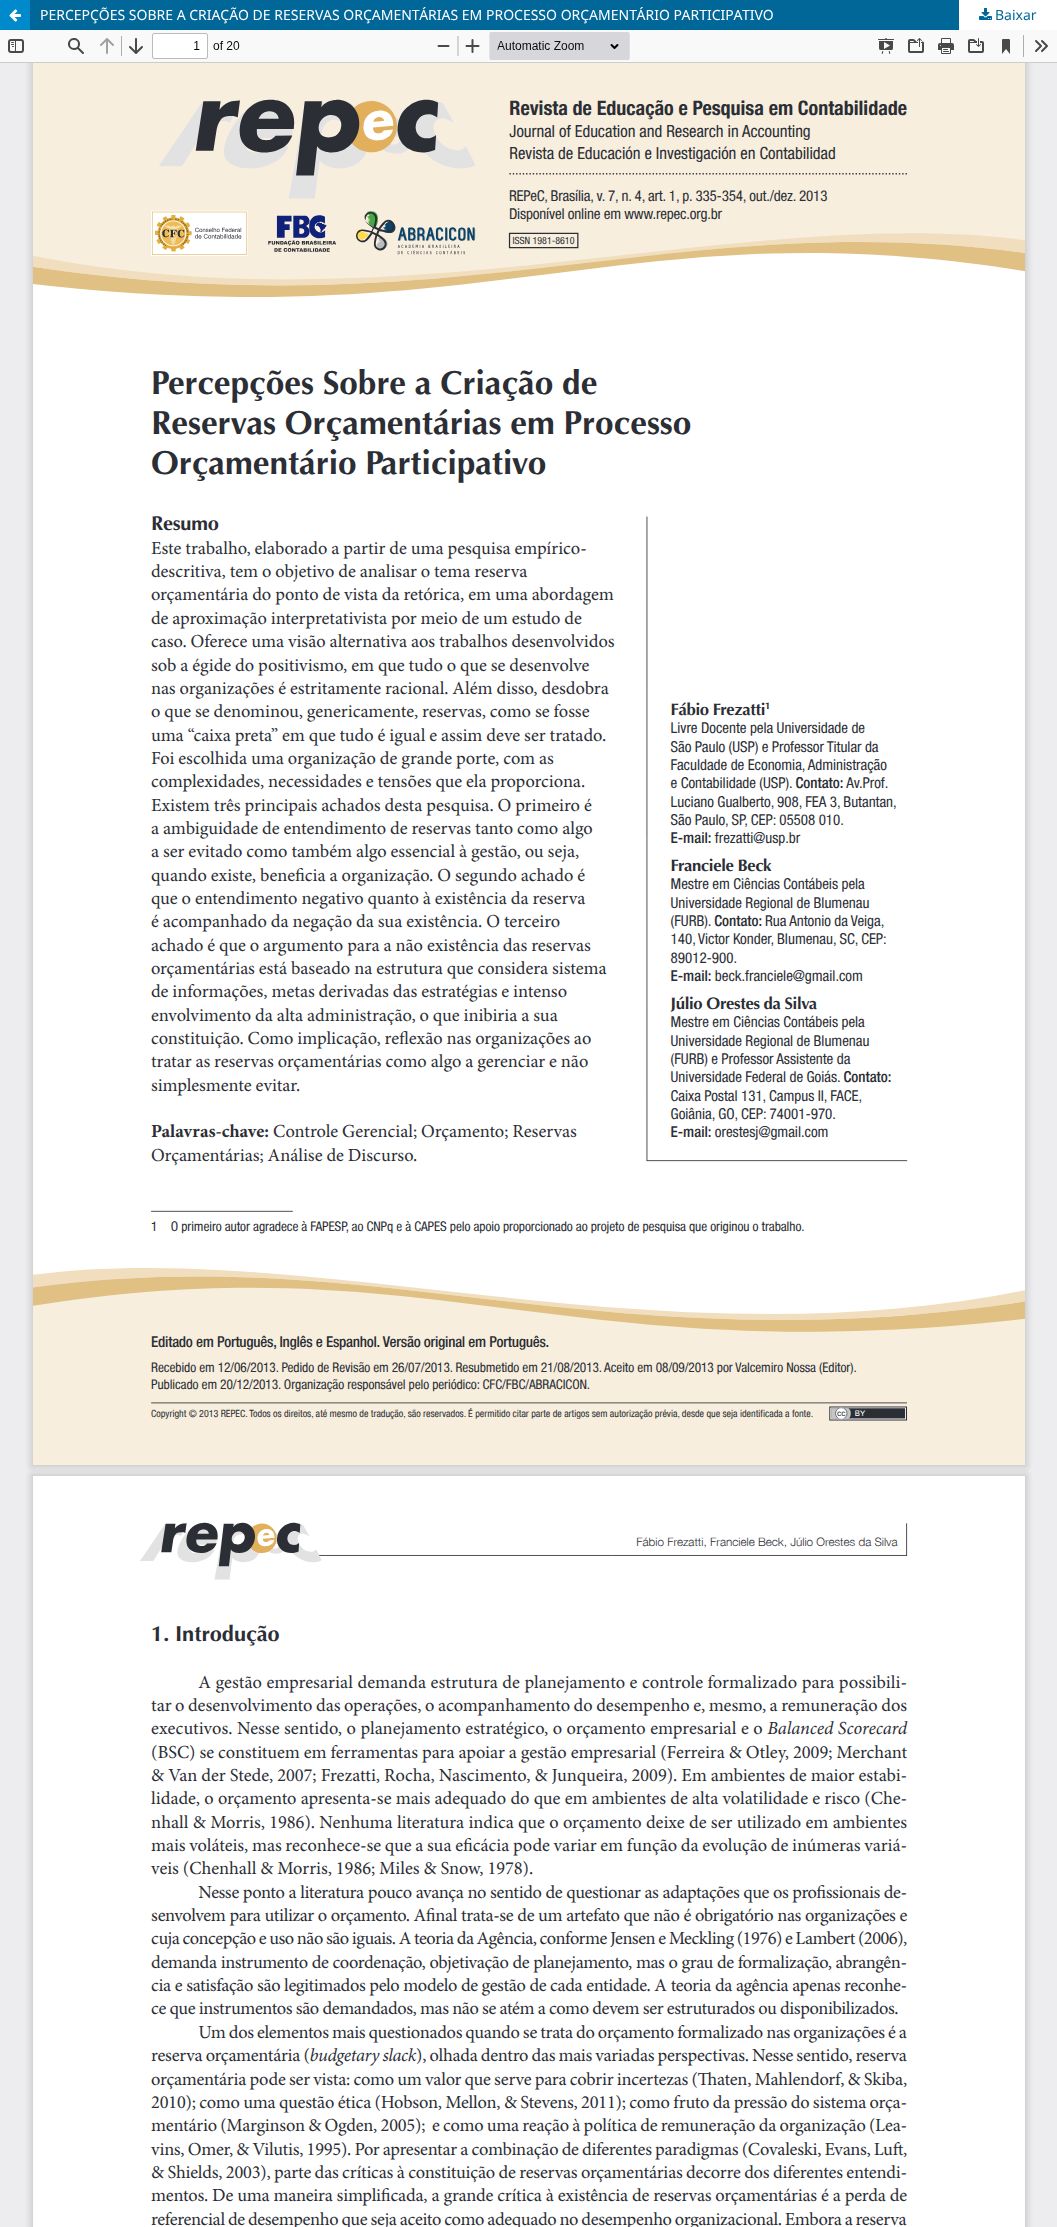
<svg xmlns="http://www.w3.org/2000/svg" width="1057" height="2227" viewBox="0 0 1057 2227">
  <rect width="100%" height="100%" fill="rgb(255,255,255)"/>
  <rect x="30" y="0" width="929" height="30" fill="rgb(0,103,152)"/>
  <rect x="0" y="0" width="30" height="30" fill="rgb(0,138,203)"/>
  <image x="9" y="9" width="12" height="13" href="pic1.png"/>
  <text x="40" y="20" font-family="Noto Sans" font-size="14" fill="rgb(255,255,255)">PERCEPÇÕES SOBRE A CRIAÇÃO DE RESERVAS ORÇAMENTÁRIAS EM PROCESSO ORÇAMENTÁRIO PARTICIPATIVO</text>
  <image x="979" y="8" width="13" height="12" href="pic2.png"/>
  <text x="995" y="20" font-family="Noto Sans" font-size="14" fill="rgb(0,103,152)">Baixar</text>
  <image x="0" y="30" width="1057" height="2197" href="pic3.png"/>
</svg>
